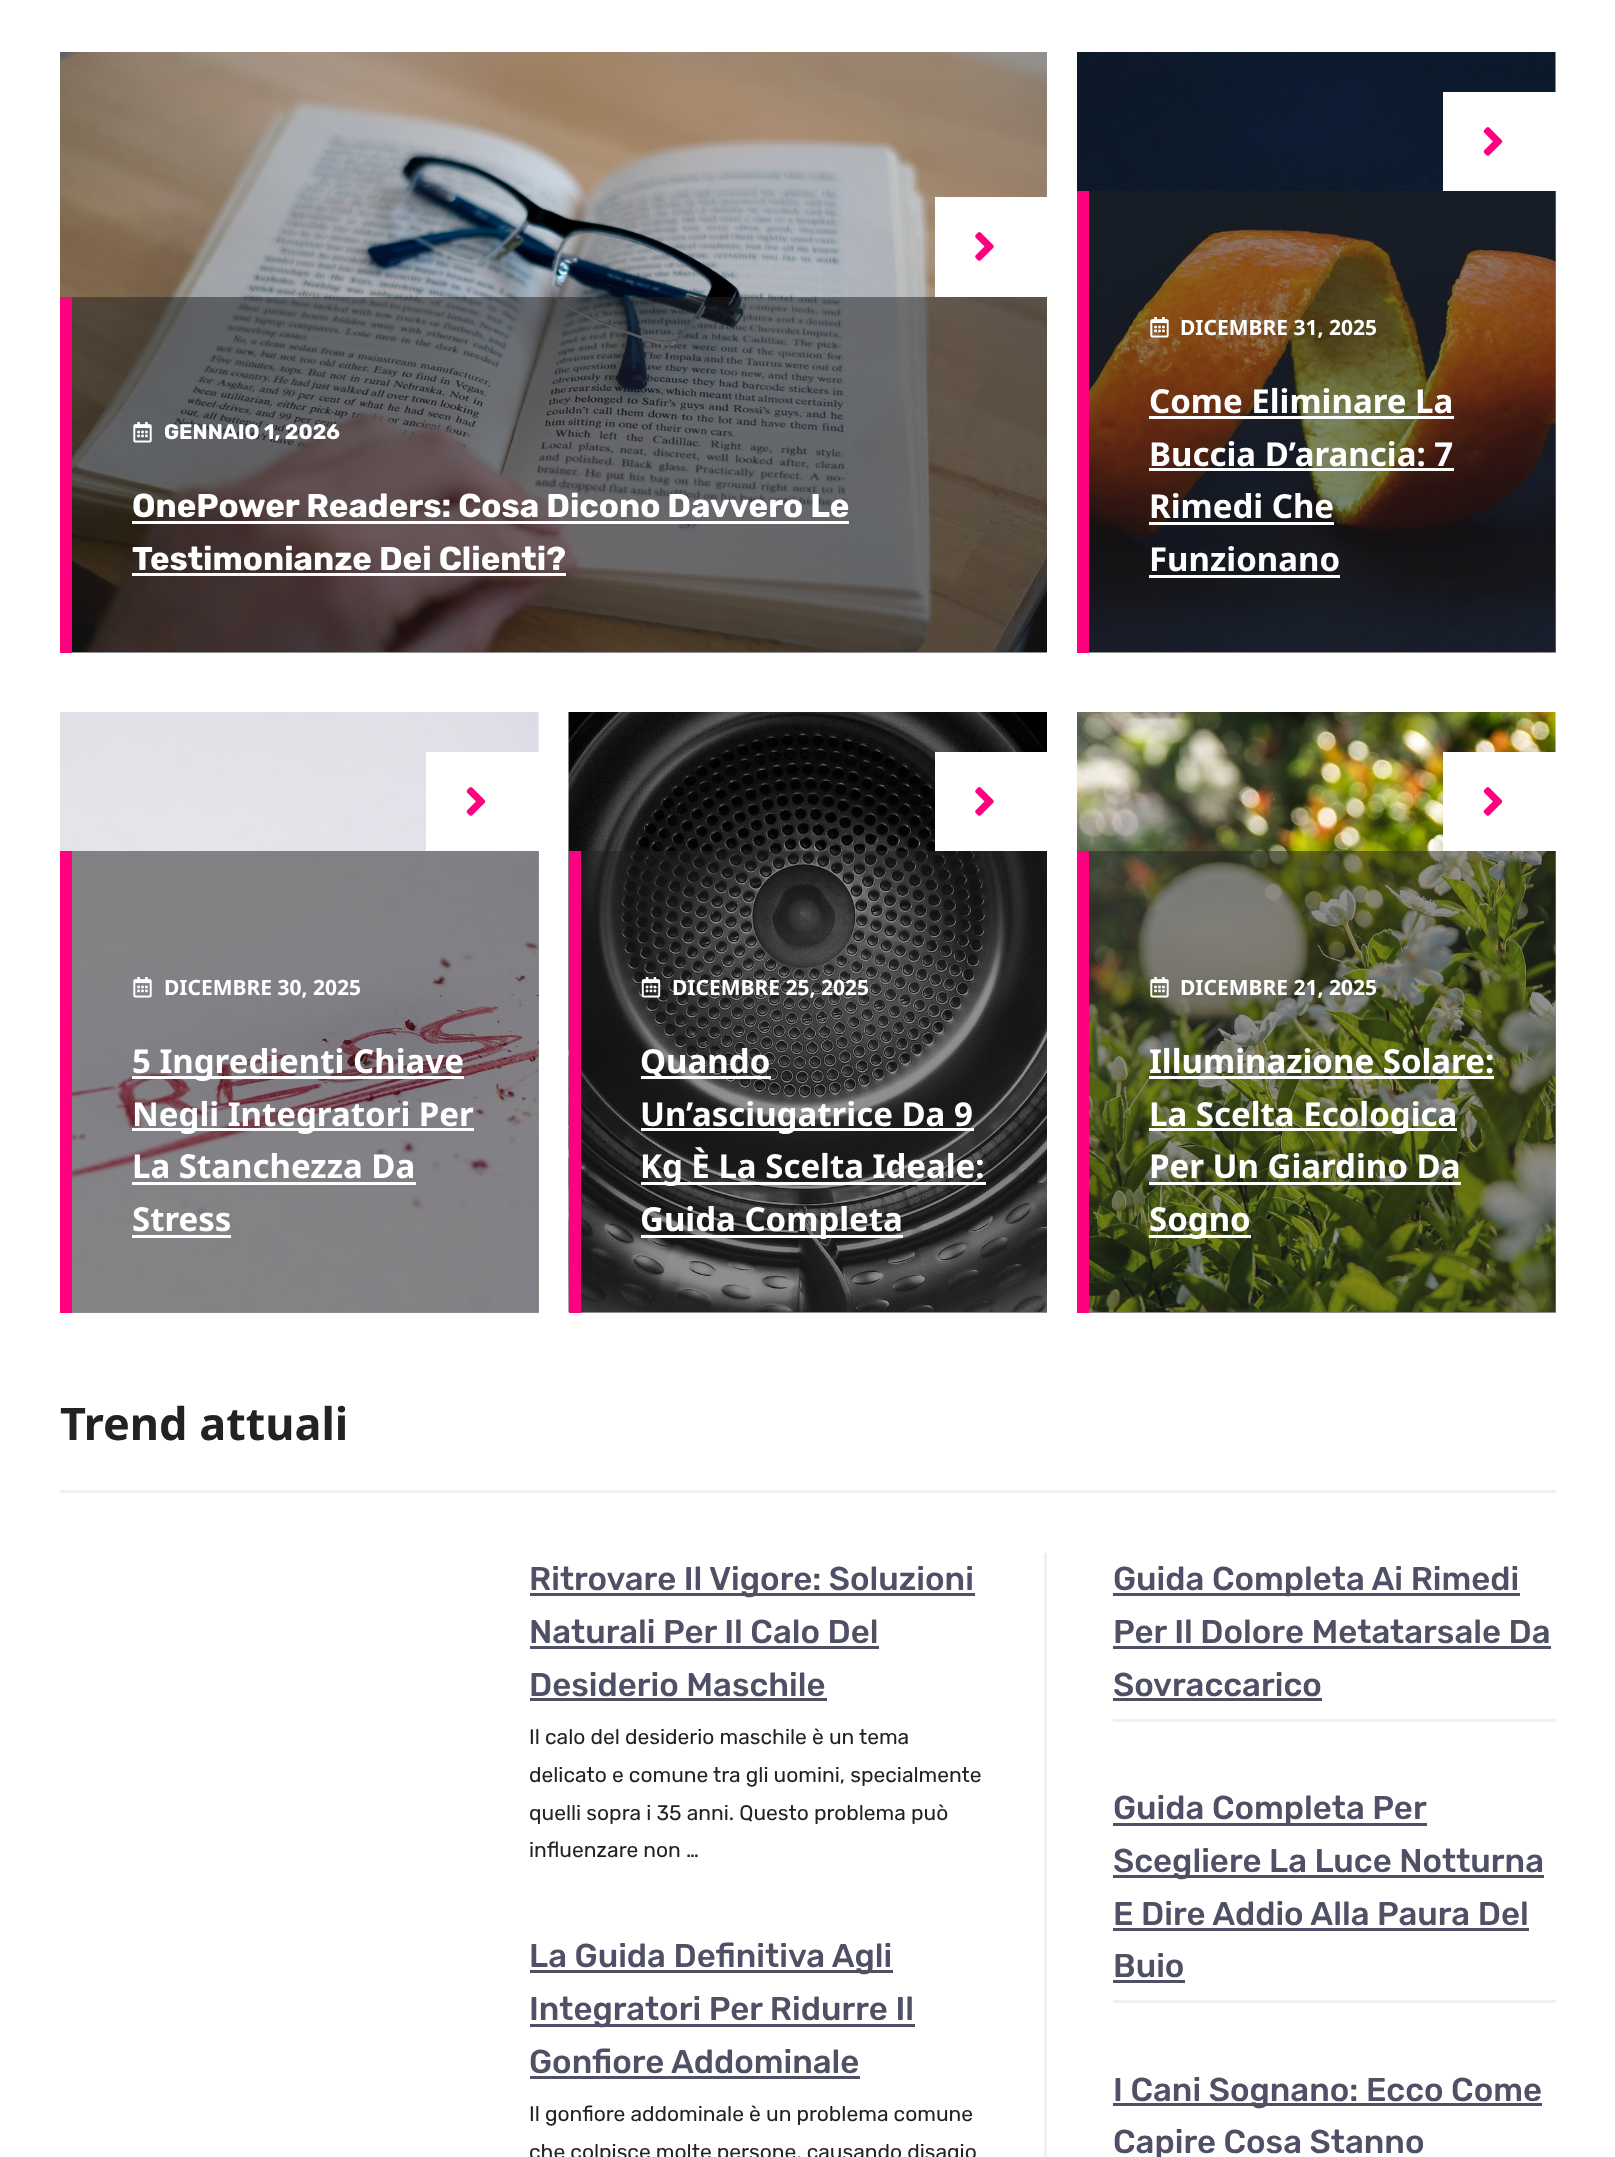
<svg xmlns="http://www.w3.org/2000/svg" width="1615" height="2157" viewBox="0 0 1615 2157">
  <rect width="100%" height="100%" fill="rgb(255,255,255)"/>
  <image x="60" y="52" width="987" height="600" href="pic1.png"/>
  <rect x="935" y="197" width="112" height="100" fill="rgb(255,255,255)"/>
  <image x="975" y="232" width="19" height="29" href="pic2.png"/>
  <rect x="72" y="297" width="975" height="356" fill="rgba(33,33,33,0.51)"/>
  <rect x="60" y="297" width="12" height="356" fill="rgb(255,0,126)"/>
  <image x="133" y="422" width="19" height="21" href="pic3.png"/>
  <text x="164" y="439" font-family="Rubik" font-size="21" font-weight="bold" fill="rgb(255,255,255)">GENNAIO 1, 2026</text>
  <text x="132" y="517" font-family="Rubik" font-size="33" font-weight="bold" fill="rgb(255,255,255)">OnePower Readers: Cosa Dicono Davvero Le</text>
  <rect x="132" y="521" width="717" height="3" fill="rgb(255,255,255)"/>
  <text x="132" y="570" font-family="Rubik" font-size="33" font-weight="bold" fill="rgb(255,255,255)">Testimonianze Dei Clienti?</text>
  <rect x="132" y="573" width="434" height="3" fill="rgb(255,255,255)"/>
  <image x="1077" y="52" width="479" height="600" href="pic4.png"/>
  <rect x="1443" y="92" width="113" height="99" fill="rgb(255,255,255)"/>
  <image x="1483" y="127" width="20" height="29" href="pic5.png"/>
  <rect x="1089" y="191" width="467" height="462" fill="rgba(33,33,33,0.51)"/>
  <rect x="1077" y="191" width="12" height="462" fill="rgb(255,0,126)"/>
  <image x="1150" y="317" width="19" height="21" href="pic6.png"/>
  <text x="1180" y="335" font-family="Noto Sans" font-size="21" font-weight="bold" fill="rgb(255,255,255)">DICEMBRE 31, 2025</text>
  <text x="1149" y="413" font-family="Noto Sans" font-size="33" font-weight="bold" fill="rgb(255,255,255)">Come Eliminare La</text>
  <rect x="1149" y="416" width="305" height="3" fill="rgb(255,255,255)"/>
  <text x="1149" y="466" font-family="Noto Sans" font-size="33" font-weight="bold" fill="rgb(255,255,255)">Buccia D’arancia: 7</text>
  <rect x="1149" y="468" width="305" height="3" fill="rgb(255,255,255)"/>
  <text x="1149" y="518" font-family="Noto Sans" font-size="33" font-weight="bold" fill="rgb(255,255,255)">Rimedi Che</text>
  <rect x="1149" y="522" width="185" height="3" fill="rgb(255,255,255)"/>
  <text x="1149" y="571" font-family="Noto Sans" font-size="33" font-weight="bold" fill="rgb(255,255,255)">Funzionano</text>
  <rect x="1149" y="575" width="191" height="3" fill="rgb(255,255,255)"/>
  <image x="60" y="712" width="479" height="600" href="pic7.png"/>
  <rect x="426" y="752" width="113" height="99" fill="rgb(255,255,255)"/>
  <image x="466" y="787" width="20" height="29" href="pic5.png"/>
  <rect x="72" y="851" width="467" height="462" fill="rgba(33,33,33,0.51)"/>
  <rect x="60" y="851" width="12" height="462" fill="rgb(255,0,126)"/>
  <image x="133" y="977" width="19" height="21" href="pic8.png"/>
  <text x="164" y="995" font-family="Noto Sans" font-size="21" font-weight="bold" fill="rgb(255,255,255)">DICEMBRE 30, 2025</text>
  <rect x="132" y="1076" width="332" height="3" fill="rgb(255,255,255)"/>
  <text x="132" y="1073" font-family="Noto Sans" font-size="33" font-weight="bold" fill="rgb(255,255,255)">5 Ingredienti Chiave</text>
  <rect x="132" y="1128" width="342" height="3" fill="rgb(255,255,255)"/>
  <g font-family="Noto Sans" font-size="33" font-weight="bold" fill="rgb(255,255,255)">
    <text>
      <tspan x="132" y="1126">Negli Integratori Per</tspan>
      <tspan x="132" y="1178">La Stanchezza Da</tspan>
    </text>
  </g>
  <rect x="132" y="1182" width="284" height="3" fill="rgb(255,255,255)"/>
  <text x="132" y="1231" font-family="Noto Sans" font-size="33" font-weight="bold" fill="rgb(255,255,255)">Stress</text>
  <rect x="132" y="1235" width="99" height="3" fill="rgb(255,255,255)"/>
  <image x="568" y="712" width="479" height="600" href="pic9.png"/>
  <rect x="935" y="752" width="112" height="99" fill="rgb(255,255,255)"/>
  <image x="975" y="787" width="19" height="29" href="pic2.png"/>
  <rect x="581" y="851" width="466" height="462" fill="rgba(33,33,33,0.51)"/>
  <rect x="569" y="851" width="12" height="462" fill="rgb(255,0,126)"/>
  <image x="641" y="977" width="20" height="21" href="pic10.png"/>
  <text x="672" y="995" font-family="Noto Sans" font-size="21" font-weight="bold" fill="rgb(255,255,255)">DICEMBRE 25, 2025</text>
  <rect x="641" y="1076" width="130" height="3" fill="rgb(255,255,255)"/>
  <text x="640" y="1073" font-family="Noto Sans" font-size="33" font-weight="bold" fill="rgb(255,255,255)">Quando</text>
  <rect x="641" y="1128" width="333" height="3" fill="rgb(255,255,255)"/>
  <text x="640" y="1126" font-family="Noto Sans" font-size="33" font-weight="bold" fill="rgb(255,255,255)">Un’asciugatrice Da 9</text>
  <rect x="641" y="1182" width="345" height="3" fill="rgb(255,255,255)"/>
  <text x="640" y="1178" font-family="Noto Sans" font-size="33" font-weight="bold" fill="rgb(255,255,255)">Kg È La Scelta Ideale:</text>
  <rect x="641" y="1235" width="262" height="3" fill="rgb(255,255,255)"/>
  <text x="640" y="1231" font-family="Noto Sans" font-size="33" font-weight="bold" fill="rgb(255,255,255)">Guida Completa</text>
  <image x="1077" y="712" width="479" height="600" href="pic11.png"/>
  <rect x="1443" y="752" width="113" height="99" fill="rgb(255,255,255)"/>
  <image x="1483" y="787" width="20" height="29" href="pic5.png"/>
  <rect x="1089" y="851" width="467" height="462" fill="rgba(33,33,33,0.51)"/>
  <rect x="1077" y="851" width="12" height="462" fill="rgb(255,0,126)"/>
  <image x="1150" y="977" width="19" height="21" href="pic12.png"/>
  <text x="1180" y="995" font-family="Noto Sans" font-size="21" font-weight="bold" fill="rgb(255,255,255)">DICEMBRE 21, 2025</text>
  <text x="1149" y="1073" font-family="Noto Sans" font-size="33" font-weight="bold" fill="rgb(255,255,255)">Illuminazione Solare:</text>
  <rect x="1149" y="1076" width="345" height="3" fill="rgb(255,255,255)"/>
  <rect x="1149" y="1128" width="308" height="3" fill="rgb(255,255,255)"/>
  <g font-family="Noto Sans" font-size="33" font-weight="bold" fill="rgb(255,255,255)">
    <text>
      <tspan x="1149" y="1126">La Scelta Ecologica</tspan>
      <tspan x="1149" y="1178">Per Un Giardino Da</tspan>
    </text>
  </g>
  <rect x="1149" y="1182" width="312" height="3" fill="rgb(255,255,255)"/>
  <rect x="1149" y="1235" width="102" height="3" fill="rgb(255,255,255)"/>
  <text x="1149" y="1231" font-family="Noto Sans" font-size="33" font-weight="bold" fill="rgb(255,255,255)">Sogno</text>
  <rect x="60" y="1490" width="1496" height="3" fill="rgb(240,240,240)"/>
  <text x="60" y="1440" font-family="Noto Sans" font-size="45" font-weight="bold" fill="rgb(34,34,34)">Trend attuali</text>
  <rect x="1044" y="1553" width="3" height="604" fill="rgb(240,240,240)"/>
  <rect x="530" y="1593" width="445" height="3" fill="rgb(79,79,101)"/>
  <g font-family="Rubik" font-size="33" font-weight="500" fill="rgb(79,79,101)">
    <text>
      <tspan x="529" y="1590">Ritrovare Il Vigore: Soluzioni</tspan>
      <tspan x="529" y="1643">Naturali Per Il Calo Del</tspan>
    </text>
  </g>
  <rect x="530" y="1646" width="349" height="3" fill="rgb(79,79,101)"/>
  <text x="529" y="1696" font-family="Rubik" font-size="33" font-weight="500" fill="rgb(79,79,101)">Desiderio Maschile</text>
  <rect x="530" y="1698" width="297" height="3" fill="rgb(79,79,101)"/>
  <g font-family="Rubik" font-size="21" fill="rgb(34,34,34)">
    <text>
      <tspan x="529" y="1744">Il calo del desiderio maschile è un tema</tspan>
      <tspan x="529" y="1782">delicato e comune tra gli uomini, specialmente</tspan>
      <tspan x="529" y="1820">quelli sopra i 35 anni. Questo problema può</tspan>
      <tspan x="529" y="1857">influenzare non …</tspan>
    </text>
  </g>
  <rect x="530" y="1970" width="363" height="3" fill="rgb(79,79,101)"/>
  <text x="529" y="1967" font-family="Rubik" font-size="33" font-weight="500" fill="rgb(79,79,101)">La Guida Definitiva Agli</text>
  <rect x="530" y="2024" width="385" height="3" fill="rgb(79,79,101)"/>
  <g font-family="Rubik" font-size="33" font-weight="500" fill="rgb(79,79,101)">
    <text>
      <tspan x="529" y="2020">Integratori Per Ridurre Il</tspan>
      <tspan x="529" y="2073">Gonfiore Addominale</tspan>
    </text>
  </g>
  <rect x="530" y="2076" width="330" height="3" fill="rgb(79,79,101)"/>
  <g font-family="Rubik" font-size="21" fill="rgb(34,34,34)">
    <text>
      <tspan x="529" y="2121">Il gonfiore addominale è un problema comune</tspan>
      <tspan x="529" y="2159">che colpisce molte persone, causando disagio</tspan>
    </text>
  </g>
  <rect x="1113" y="1719" width="443" height="3" fill="rgb(240,240,240)"/>
  <rect x="1113" y="1593" width="407" height="3" fill="rgb(79,79,101)"/>
  <g font-family="Rubik" font-size="33" font-weight="500" fill="rgb(79,79,101)">
    <text>
      <tspan x="1113" y="1590">Guida Completa Ai Rimedi</tspan>
      <tspan x="1113" y="1643">Per Il Dolore Metatarsale Da</tspan>
    </text>
  </g>
  <rect x="1113" y="1646" width="438" height="3" fill="rgb(79,79,101)"/>
  <text x="1113" y="1696" font-family="Rubik" font-size="33" font-weight="500" fill="rgb(79,79,101)">Sovraccarico</text>
  <rect x="1113" y="1698" width="209" height="3" fill="rgb(79,79,101)"/>
  <rect x="1113" y="2000" width="443" height="3" fill="rgb(240,240,240)"/>
  <rect x="1113" y="1823" width="314" height="3" fill="rgb(79,79,101)"/>
  <text x="1113" y="1819" font-family="Rubik" font-size="33" font-weight="500" fill="rgb(79,79,101)">Guida Completa Per</text>
  <rect x="1113" y="1875" width="431" height="3" fill="rgb(79,79,101)"/>
  <g font-family="Rubik" font-size="33" font-weight="500" fill="rgb(79,79,101)">
    <text>
      <tspan x="1113" y="1872">Scegliere La Luce Notturna</tspan>
      <tspan x="1113" y="1925">E Dire Addio Alla Paura Del</tspan>
    </text>
  </g>
  <rect x="1113" y="1928" width="416" height="3" fill="rgb(79,79,101)"/>
  <text x="1113" y="1977" font-family="Rubik" font-size="33" font-weight="500" fill="rgb(79,79,101)">Buio</text>
  <rect x="1113" y="1980" width="72" height="3" fill="rgb(79,79,101)"/>
  <rect x="1113" y="2103" width="429" height="3" fill="rgb(79,79,101)"/>
  <g font-family="Rubik" font-size="33" font-weight="500" fill="rgb(79,79,101)">
    <text>
      <tspan x="1113" y="2101">I Cani Sognano: Ecco Come</tspan>
      <tspan x="1113" y="2153">Capire Cosa Stanno</tspan>
    </text>
  </g>
</svg>
